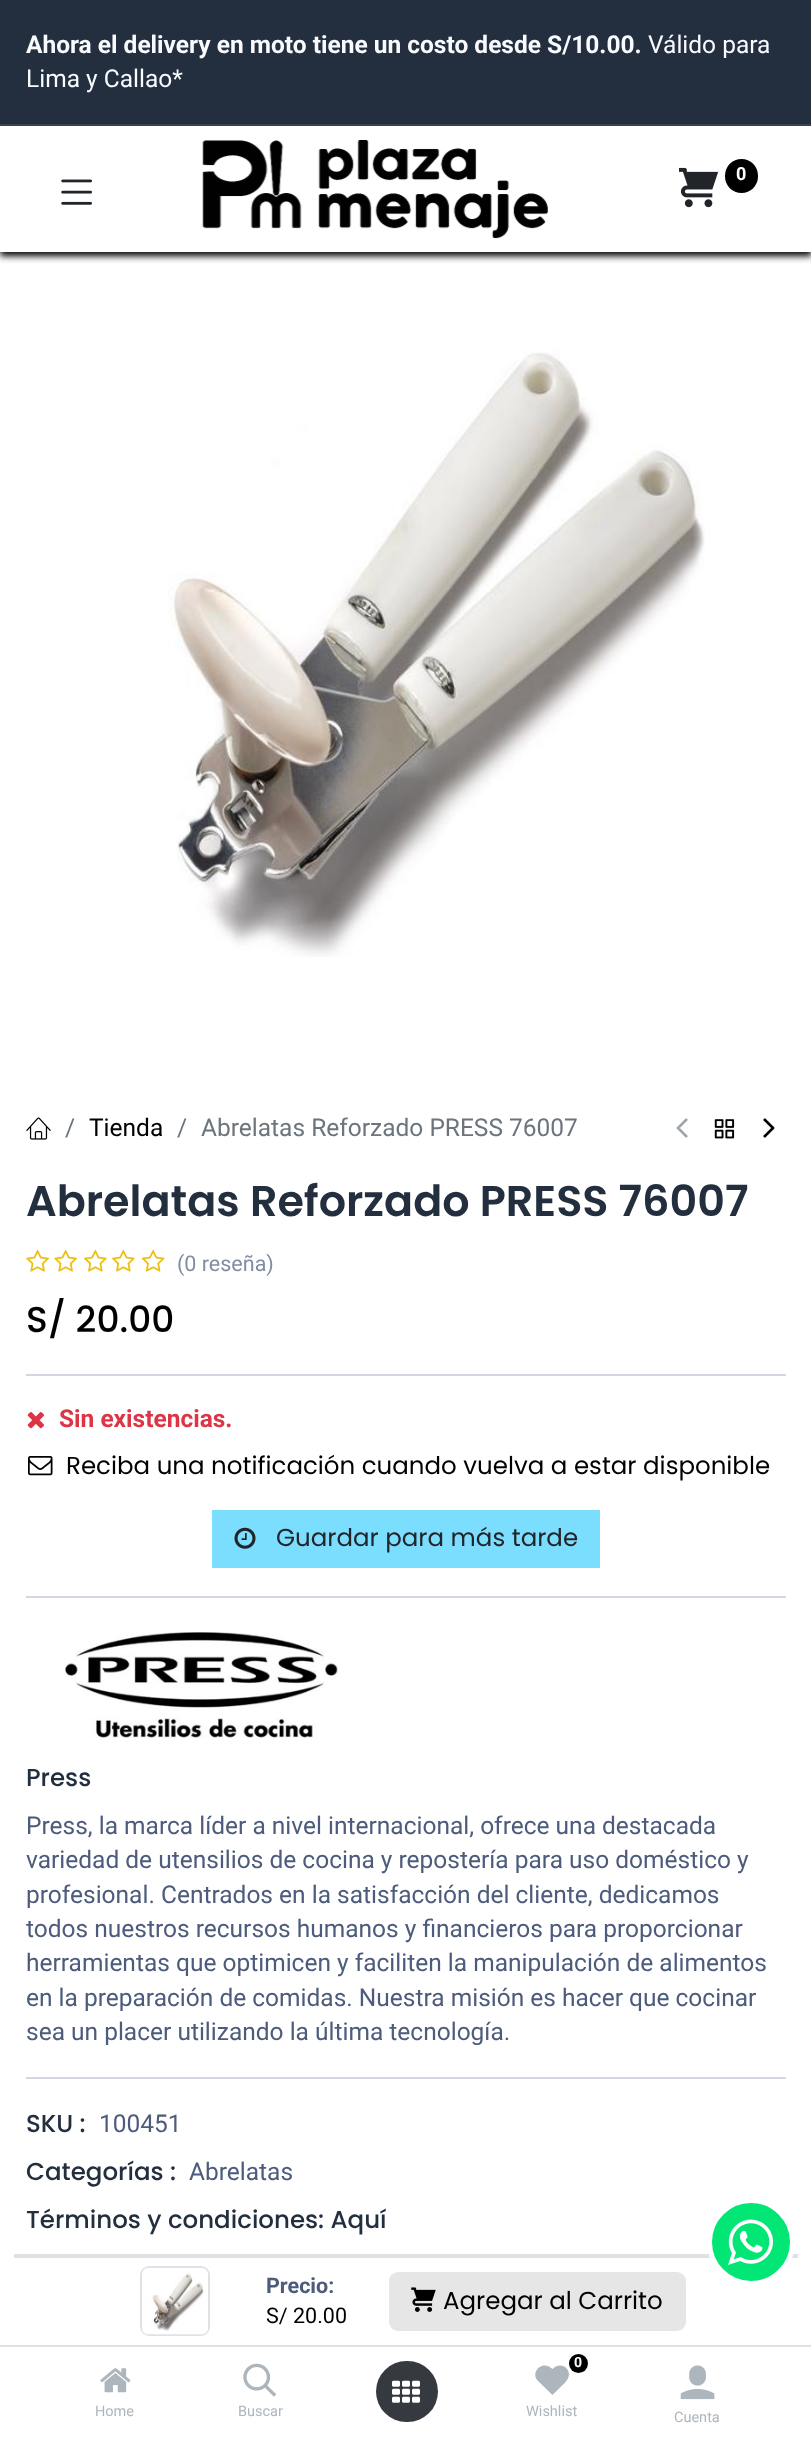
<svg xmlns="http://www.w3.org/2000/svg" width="811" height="2443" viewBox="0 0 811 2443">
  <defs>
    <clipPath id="clip1"><path d="M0 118H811V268H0ZM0 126H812V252H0Z" clip-rule="evenodd"/></clipPath>
  </defs>
  <rect width="100%" height="100%" fill="rgb(255,255,255)"/>
  <rect x="0" y="0" width="811" height="124" fill="rgb(35,47,62)"/>
  <rect x="0" y="124" width="811" height="2" fill="rgb(61,72,85)"/>
  <text x="26" y="53" font-family="Roboto" font-size="24.5" font-weight="bold" fill="rgb(249,250,254)">Ahora el delivery en moto tiene un costo desde S/10.00.</text>
  <g font-family="Roboto" font-size="24.5" fill="rgb(249,250,254)">
    <text x="648" y="53">Válido para</text>
    <text x="26" y="87">Lima y Callao*</text>
  </g>
  <g clip-path="url(#clip1)">
    <rect x="0" y="130" width="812" height="126" fill="rgb(0,0,0)" filter="blur(3.5px)"/>
  </g>
  <image x="202" y="140" width="346" height="99" href="pic1.png"/>
  <image x="679" y="167" width="40" height="41" href="pic2.png"/>
  <rect x="725" y="159" width="33" height="34" rx="16.5" fill="rgb(0,0,0)"/>
  <text x="736" y="180" font-family="Roboto" font-size="18" font-weight="bold" fill="rgb(255,255,255)">0</text>
  <image x="61" y="179" width="31" height="26" href="pic3.png"/>
  <image x="168" y="350" width="537" height="607" href="pic4.png"/>
  <image x="26" y="1117" width="25" height="23" href="pic5.png"/>
  <text x="65" y="1136" font-family="Roboto" font-size="24.5" fill="rgb(108,117,125)">/</text>
  <text x="89" y="1136" font-family="Roboto" font-size="24.5" fill="rgb(0,0,0)">Tienda</text>
  <g font-family="Roboto" font-size="24.5" fill="rgb(108,117,125)">
    <text x="177" y="1136">/</text>
    <text x="201" y="1136">Abrelatas Reforzado PRESS 76007</text>
  </g>
  <image x="676" y="1118" width="12" height="20" href="pic6.png"/>
  <image x="714" y="1119" width="21" height="20" href="pic7.png"/>
  <image x="763" y="1118" width="12" height="20" href="pic8.png"/>
  <text x="26" y="1216" font-family="Poppins" font-size="42.9" font-weight="600" fill="rgb(35,47,62)">Abrelatas Reforzado PRESS 76007</text>
  <image x="26" y="1250" width="23" height="22" href="pic9.png"/>
  <image x="54" y="1250" width="23" height="22" href="pic9.png"/>
  <image x="84" y="1250" width="23" height="22" href="pic10.png"/>
  <image x="112" y="1250" width="23" height="22" href="pic10.png"/>
  <image x="141" y="1250" width="24" height="22" href="pic11.png"/>
  <text x="177" y="1271" font-family="Roboto" font-size="21.5" fill="rgb(130,140,163)">(0 reseña)</text>
  <text x="26" y="1332" font-family="Poppins" font-size="36" font-weight="500" fill="rgb(0,0,0)">S/ 20.00</text>
  <rect x="26" y="1374" width="760" height="2" fill="rgb(211,214,222)"/>
  <image x="27" y="1412" width="17" height="17" href="pic12.png"/>
  <text x="59" y="1427" font-family="Roboto" font-size="24.5" font-weight="bold" fill="rgb(220,53,69)">Sin existencias.</text>
  <image x="28" y="1456" width="25" height="20" href="pic13.png"/>
  <text x="66" y="1474" font-family="Poppins" font-size="24.5" fill="rgb(0,0,0)">Reciba una notificación cuando vuelva a estar disponible</text>
  <rect x="212" y="1510" width="388" height="58" fill="rgb(123,222,255)"/>
  <image x="234" y="1527" width="22" height="22" href="pic14.png"/>
  <text x="276" y="1546" font-family="Poppins" font-size="24.5" fill="rgb(33,37,41)">Guardar para más tarde</text>
  <rect x="26" y="1596" width="760" height="2" fill="rgb(211,214,222)"/>
  <image x="65" y="1630" width="273" height="108" href="pic15.png"/>
  <text x="26" y="1786" font-family="Poppins" font-size="24.5" font-weight="500" fill="rgb(35,47,62)">Press</text>
  <g font-family="Roboto" font-size="24.5" fill="rgb(77,91,124)">
    <text>
      <tspan x="26" y="1834">Press, la marca líder a nivel internacional, ofrece una destacada</tspan>
      <tspan x="26" y="1868">variedad de utensilios de cocina y repostería para uso doméstico y</tspan>
      <tspan x="26" y="1903">profesional. Centrados en la satisfacción del cliente, dedicamos</tspan>
      <tspan x="26" y="1937">todos nuestros recursos humanos y financieros para proporcionar</tspan>
      <tspan x="26" y="1971">herramientas que optimicen y faciliten la manipulación de alimentos</tspan>
      <tspan x="26" y="2006">en la preparación de comidas. Nuestra misión es hacer que cocinar</tspan>
      <tspan x="26" y="2040">sea un placer utilizando la última tecnología.</tspan>
    </text>
  </g>
  <rect x="26" y="2077" width="760" height="2" fill="rgb(211,214,222)"/>
  <text x="26" y="2132" font-family="Poppins" font-size="24.5" font-weight="500" fill="rgb(35,47,62)">SKU :</text>
  <text x="99" y="2132" font-family="Roboto" font-size="24.5" fill="rgb(77,91,124)">100451</text>
  <text x="26" y="2180" font-family="Poppins" font-size="24.5" font-weight="500" fill="rgb(35,47,62)">Categorías :</text>
  <text x="189" y="2180" font-family="Roboto" font-size="24.5" fill="rgb(77,91,124)">Abrelatas</text>
  <text x="26" y="2228" font-family="Poppins" font-size="24.5" font-weight="500" fill="rgb(35,47,62)">Términos y condiciones: Aquí</text>
  <rect x="14" y="2254" width="784" height="4" fill="rgb(222,226,230)"/>
  <rect x="0" y="2345" width="811" height="2" fill="rgb(222,226,230)"/>
  <rect x="141" y="2267" width="68" height="68" rx="8" fill="none" stroke="rgb(222,226,230)" stroke-width="2"/>
  <image x="142" y="2268" width="66" height="67" href="pic16.png"/>
  <text x="266" y="2293" font-family="Roboto" font-size="21.5" font-weight="bold" fill="rgb(77,91,124)">Precio:</text>
  <text x="266" y="2323" font-family="Roboto" font-size="21.5" fill="rgb(0,0,0)">S/ 20.00</text>
  <rect x="389" y="2272" width="297" height="59" rx="9" fill="rgb(230,230,230)"/>
  <image x="411" y="2287" width="25" height="25" href="pic17.png"/>
  <text x="443" y="2309" font-family="Poppins" font-size="24.5" fill="rgb(0,0,0)">Agregar al Carrito</text>
  <image x="100" y="2368" width="31" height="25" href="pic18.png"/>
  <text x="95" y="2416" font-family="Roboto" font-size="14.5" fill="rgb(173,181,189)">Home</text>
  <image x="243" y="2363" width="34" height="34" href="pic19.png"/>
  <text x="238" y="2416" font-family="Roboto" font-size="14.5" fill="rgb(173,181,189)">Buscar</text>
  <rect x="376" y="2361" width="62" height="61" rx="30.5" fill="rgb(52,58,64)"/>
  <image x="392" y="2380" width="28" height="23" href="pic20.png"/>
  <circle cx="578.5" cy="2363.5" r="9.5" fill="rgb(0,0,0)"/>
  <text x="574" y="2367" font-family="Roboto" font-size="14" font-weight="bold" fill="rgb(255,255,255)">0</text>
  <path d="M552.5 2369C542 2359 530 2372.5 538 2381L552.5 2395L561.5 2386C564 2383.5 566.5 2381.5 568 2378.5C572.5 2369 560.5 2360.5 552.5 2369Z" fill="rgb(173,181,189)"/>
  <text x="526" y="2416" font-family="Roboto" font-size="14.5" fill="rgb(173,181,189)">Wishlist</text>
  <image x="680" y="2365" width="35" height="35" href="pic21.png"/>
  <text x="674" y="2422" font-family="Roboto" font-size="14.5" fill="rgb(173,181,189)">Cuenta</text>
  <circle cx="751" cy="2242" r="41.5" fill="rgb(1,230,117)" stroke="rgb(255,255,255)" stroke-width="5"/>
  <image x="728" y="2219" width="45" height="46" href="pic22.png"/>
</svg>
